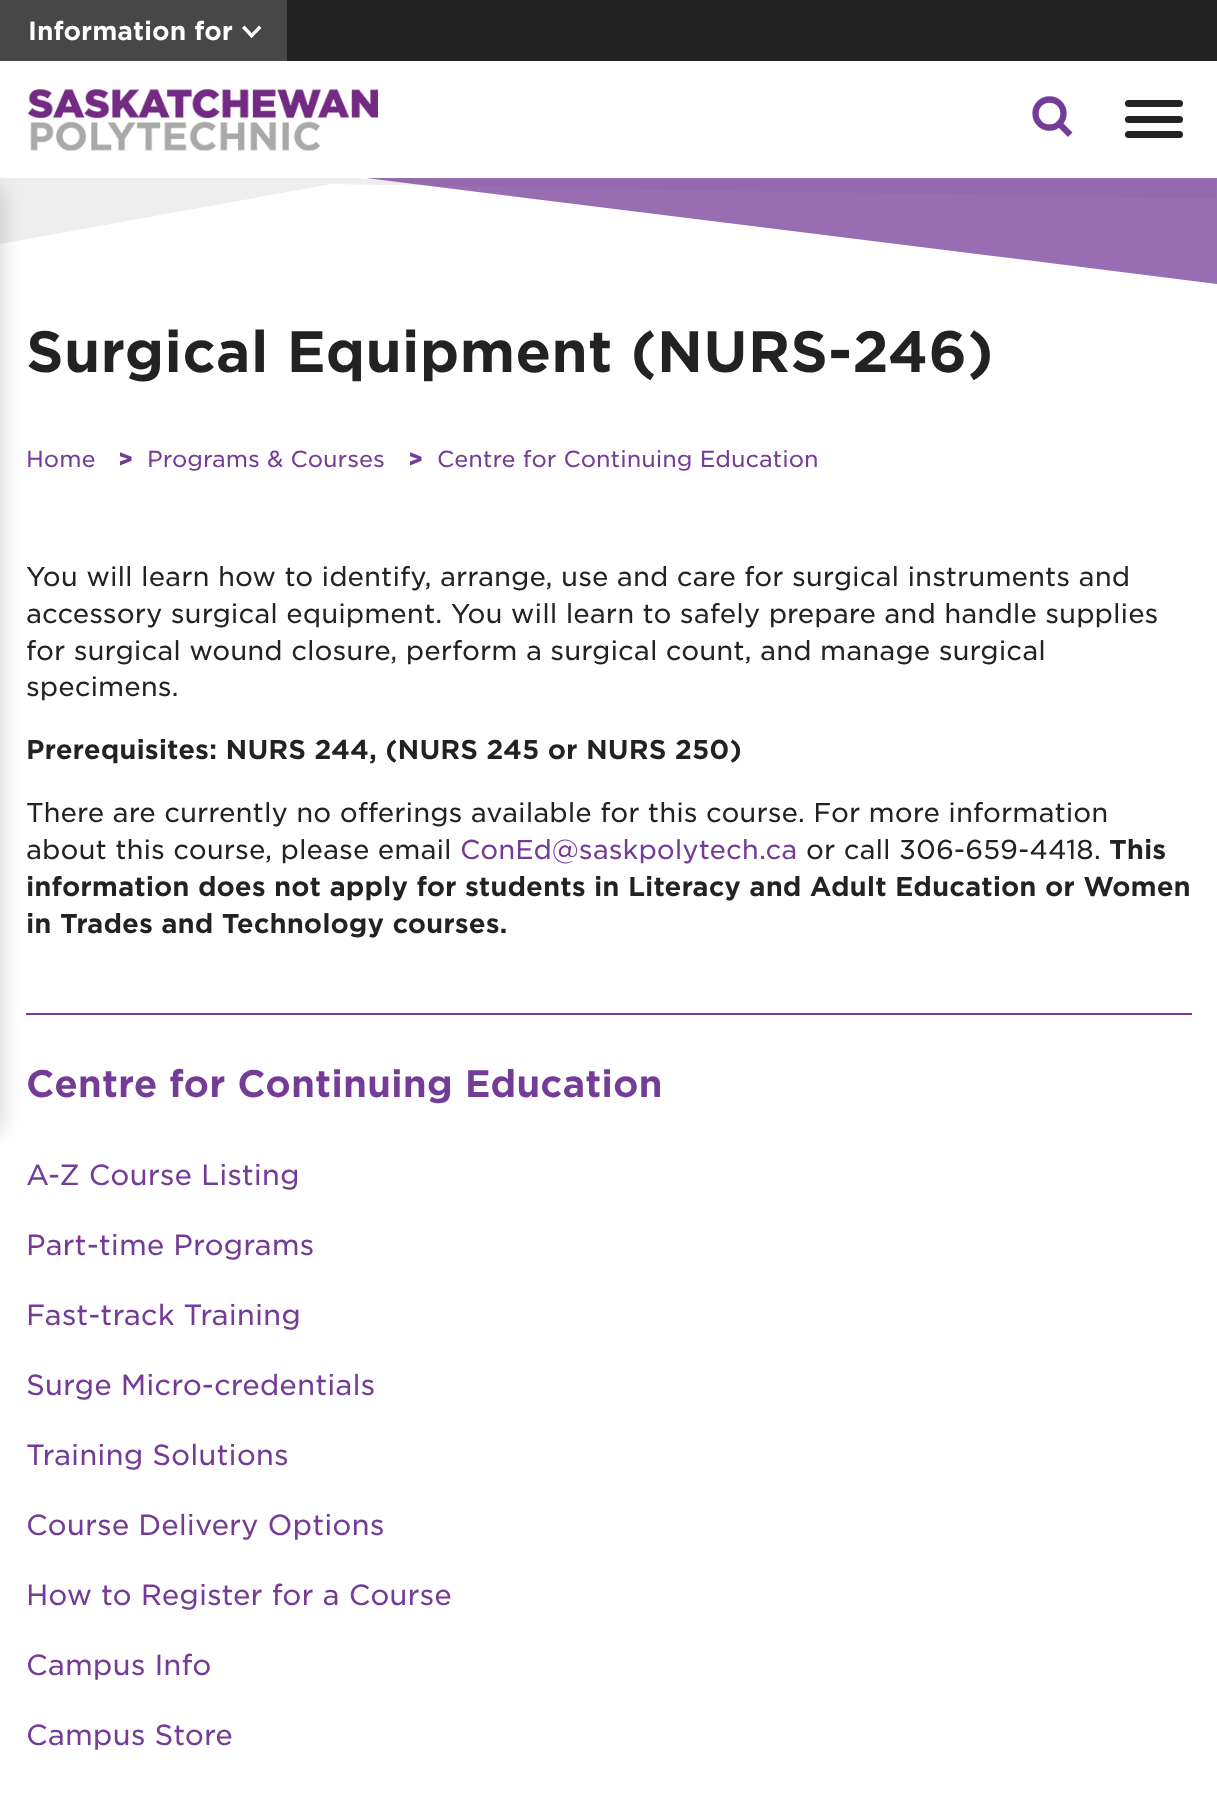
<svg xmlns="http://www.w3.org/2000/svg" width="1217" height="1793" viewBox="0 0 1217 1793">
  <rect width="100%" height="100%" fill="rgb(255,255,255)"/>
  <rect x="287" y="0" width="930" height="61" fill="rgb(34,34,34)"/>
  <rect x="0" y="0" width="287" height="61" fill="rgb(71,71,71)"/>
  <text x="28" y="40" font-family="'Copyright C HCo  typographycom'" font-size="25.25" fill="rgb(255,255,255)">Information for</text>
  <path d="M249.5 35.5L259 25.5L261.5 28L251.5 38Z" fill="rgb(255,255,255)"/>
  <path d="M242 28L244.5 25.5L254 35.5L251.5 38Z" fill="rgb(255,255,255)"/>
  <rect x="0" y="178" width="1217" height="1" fill="rgb(255,255,255)"/>
  <image x="28" y="89" width="350" height="62" href="pic1.png"/>
  <image x="331" y="179" width="885" height="20" href="pic2.png"/>
  <path d="M365 178H0V244Z" fill="rgb(238,238,238)"/>
  <rect x="26" y="1013" width="1166" height="2" fill="rgb(116,60,151)"/>
  <rect x="-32" y="189" width="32" height="942" fill="rgba(0,0,0,0.2)" filter="blur(10.5px)"/>
  <circle cx="1049.5" cy="113.5" r="14" fill="none" stroke="rgb(117,60,151)" stroke-width="6.3"/>
  <path d="M1061 125.5L1068 132.5" fill="none" stroke="rgb(117,60,151)" stroke-width="6.3" stroke-linecap="square"/>
  <rect x="1125" y="100" width="58" height="7" rx="3.5" fill="rgb(34,34,34)"/>
  <rect x="1125" y="116" width="58" height="7" rx="3.5" fill="rgb(34,34,34)"/>
  <rect x="1125" y="131" width="58" height="7" rx="3.5" fill="rgb(34,34,34)"/>
  <path d="M366 178H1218V284Z" fill="rgba(117,60,151,0.75)"/>
  <text x="26" y="372" font-family="'Copyright C HCo  typographycom'" font-size="56" fill="rgb(34,34,34)">Surgical Equipment (NURS-246)</text>
  <text x="26" y="467" font-family="'Copyright C HCo  typographycom'" font-size="22.4" font-weight="300" fill="rgb(116,60,151)">Home</text>
  <text x="118" y="467" font-family="'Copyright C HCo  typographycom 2'" font-size="22.4" fill="rgb(116,60,151)">&gt;</text>
  <text x="147" y="467" font-family="'Copyright C HCo  typographycom'" font-size="22.4" font-weight="300" fill="rgb(116,60,151)">Programs &amp; Courses</text>
  <text x="408" y="467" font-family="'Copyright C HCo  typographycom 2'" font-size="22.4" fill="rgb(116,60,151)">&gt;</text>
  <text x="437" y="467" font-family="'Copyright C HCo  typographycom'" font-size="22.4" font-weight="300" fill="rgb(116,60,151)">Centre for Continuing Education</text>
  <g font-family="'Copyright C HCo  typographycom'" font-size="26.25" font-weight="300" fill="rgb(34,34,34)">
    <text>
      <tspan x="26" y="586">You will learn how to identify, arrange, use and care for surgical instruments and</tspan>
      <tspan x="26" y="623">accessory surgical equipment. You will learn to safely prepare and handle supplies</tspan>
      <tspan x="26" y="660">for surgical wound closure, perform a surgical count, and manage surgical</tspan>
      <tspan x="26" y="696">specimens.</tspan>
    </text>
  </g>
  <text x="26" y="759" font-family="'Copyright C HCo  typographycom'" font-size="26.25" fill="rgb(34,34,34)">Prerequisites: NURS 244, (NURS 245 or NURS 250)</text>
  <g font-family="'Copyright C HCo  typographycom'" font-size="26.25" font-weight="300" fill="rgb(34,34,34)">
    <text>
      <tspan x="26" y="822">There are currently no offerings available for this course. For more information</tspan>
      <tspan x="26" y="859">about this course, please email</tspan>
    </text>
  </g>
  <text x="460" y="859" font-family="'Copyright C HCo  typographycom'" font-size="26.25" font-weight="300" fill="rgb(116,60,151)">ConEd@saskpolytech.ca</text>
  <text x="806" y="859" font-family="'Copyright C HCo  typographycom'" font-size="26.25" font-weight="300" fill="rgb(34,34,34)">or call 306-659-4418.</text>
  <g font-family="'Copyright C HCo  typographycom'" font-size="26.25" fill="rgb(34,34,34)">
    <text x="1109" y="859">This</text>
    <text>
      <tspan x="26" y="896">information does not apply for students in Literacy and Adult Education or Women</tspan>
      <tspan x="26" y="933">in Trades and Technology courses.</tspan>
    </text>
  </g>
  <text x="26" y="1097" font-family="'Copyright C HCo  typographycom'" font-size="36.75" fill="rgb(116,60,151)">Centre for Continuing Education</text>
  <g font-family="'Copyright C HCo  typographycom'" font-size="28" font-weight="300" fill="rgb(116,60,151)">
    <text x="26" y="1185">A-Z Course Listing</text>
    <text x="26" y="1255">Part-time Programs</text>
    <text x="26" y="1325">Fast-track Training</text>
    <text x="26" y="1395">Surge Micro-credentials</text>
    <text x="26" y="1465">Training Solutions</text>
    <text x="26" y="1535">Course Delivery Options</text>
    <text x="26" y="1605">How to Register for a Course</text>
    <text x="26" y="1675">Campus Info</text>
    <text x="26" y="1745">Campus Store</text>
  </g>
</svg>
